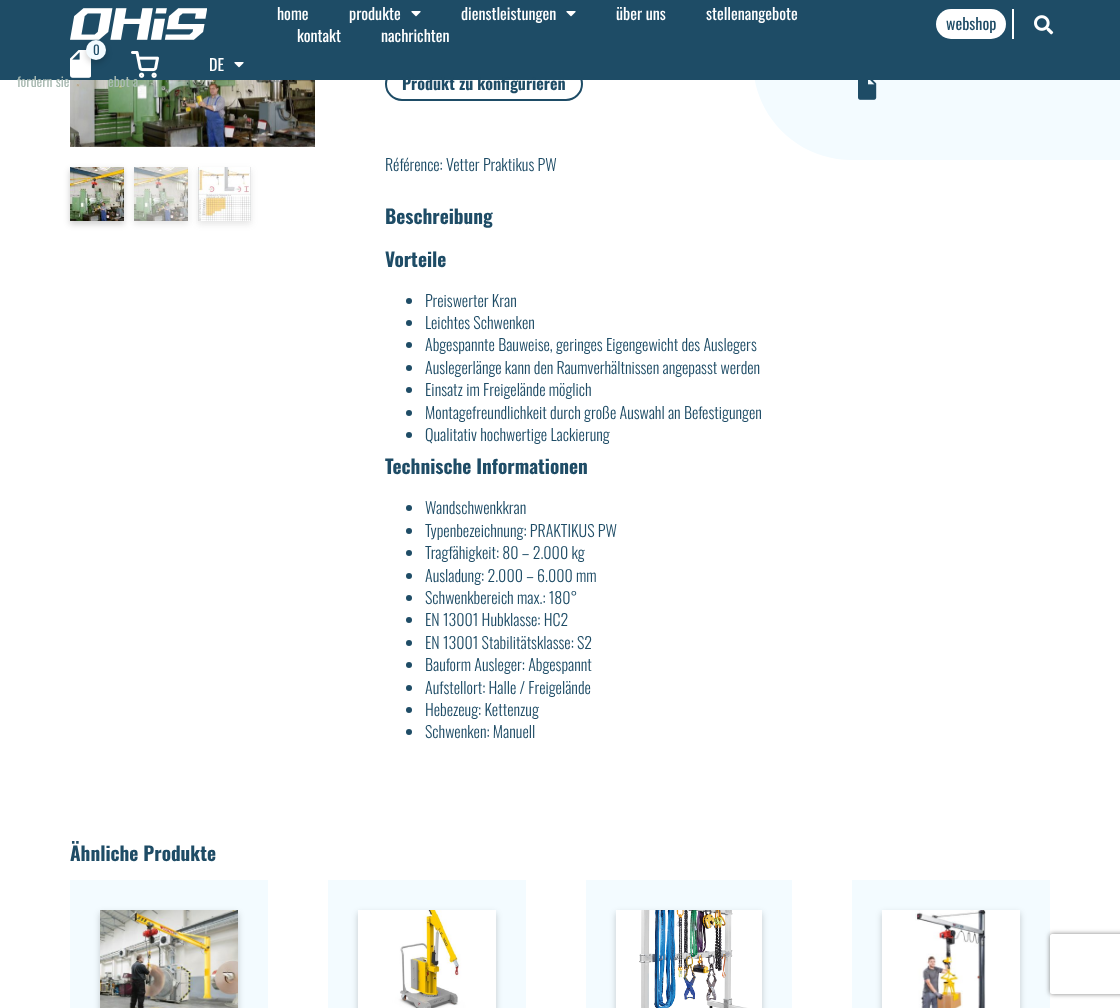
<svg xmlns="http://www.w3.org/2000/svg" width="1120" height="1008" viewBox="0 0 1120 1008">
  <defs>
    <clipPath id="clip1"><path d="M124 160H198V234H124ZM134 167H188V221H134Z" clip-rule="evenodd"/></clipPath>
    <clipPath id="clip2"><path d="M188 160H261V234H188ZM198 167H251V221H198Z" clip-rule="evenodd"/></clipPath>
    <clipPath id="clip3"><path d="M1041 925H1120V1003H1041ZM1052 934H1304C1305 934 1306 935 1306 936V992C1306 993 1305 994 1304 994H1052C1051 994 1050 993 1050 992V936C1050 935 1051 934 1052 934Z" clip-rule="evenodd"/></clipPath>
  </defs>
  <rect width="100%" height="100%" fill="rgb(255,255,255)"/>
  <rect x="386" y="68" width="196" height="32" rx="16" fill="none" stroke="rgb(30,76,102)" stroke-width="2"/>
  <path d="M851.5-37H1120V160H851.5C797 160 753 116 753 61.5C753 7 797-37 851.5-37Z" fill="rgb(243,251,255)"/>
  <rect x="0" y="0" width="1120" height="80" fill="rgb(30,76,102)"/>
  <image x="70" y="8" width="137" height="32" href="pic1.png"/>
  <g font-family="Oswald" font-size="16" fill="rgb(255,255,255)">
    <text x="277" y="20">home</text>
    <text x="349" y="20">produkte</text>
  </g>
  <image x="411" y="11" width="10" height="6" href="pic2.png"/>
  <text x="461" y="20" font-family="Oswald" font-size="16" fill="rgb(255,255,255)">dienstleistungen</text>
  <image x="566" y="11" width="10" height="6" href="pic2.png"/>
  <g font-family="Oswald" font-size="16" fill="rgb(255,255,255)">
    <text x="616" y="20">über uns</text>
    <text x="706" y="20">stellenangebote</text>
    <text x="297" y="42">kontakt</text>
    <text x="381" y="42">nachrichten</text>
  </g>
  <rect x="936" y="9" width="70" height="30" rx="15" fill="rgb(255,255,255)"/>
  <text x="946" y="30" font-family="Oswald" font-size="16" fill="rgb(30,76,102)">webshop</text>
  <rect x="1012" y="9" width="2" height="30" fill="rgb(255,255,255)"/>
  <image x="1034" y="15" width="20" height="20" href="pic3.png"/>
  <image x="70" y="50" width="21" height="28" href="pic5.png"/>
  <rect x="86" y="43" width="20" height="20" rx="10" fill="rgba(0,0,0,0.2)" filter="blur(3px)"/>
  <circle cx="96" cy="50" r="10" fill="rgb(243,251,255)"/>
  <text x="93" y="55" font-family="Oswald" font-size="13" fill="rgb(30,76,102)">0</text>
  <image x="70" y="80" width="245" height="67" href="pic6.png"/>
  <text x="108" y="87" font-family="Oswald" font-size="13.5" fill="rgb(170,187,179)">ebot a</text>
  <image x="131" y="51" width="28" height="27" href="pic4.png"/>
  <text x="17" y="87" font-family="Oswald" font-size="13.5" fill="rgb(170,187,179)">fordern sie</text>
  <text x="209" y="71" font-family="Oswald" font-size="16" fill="rgb(255,255,255)">DE</text>
  <image x="234" y="62" width="10" height="6" href="pic2.png"/>
  <rect x="70" y="170" width="54" height="54" fill="rgba(0,0,0,0.2)" filter="blur(3px)"/>
  <image x="70" y="167" width="54" height="54" href="pic7.png"/>
  <g clip-path="url(#clip1)">
    <rect x="134" y="170" width="54" height="54" fill="rgba(0,0,0,0.1)" filter="blur(3px)"/>
  </g>
  <image x="134" y="167" width="54" height="54" href="pic8.png"/>
  <g clip-path="url(#clip2)">
    <rect x="198" y="170" width="53" height="54" fill="rgba(127,127,127,0.2)" filter="blur(3px)"/>
  </g>
  <image x="198" y="167" width="53" height="54" href="pic9.png"/>
  <text x="402" y="90" font-family="Oswald" font-size="16" font-weight="bold" fill="rgb(30,76,102)">Produkt zu konfigurieren</text>
  <text x="385" y="171" font-family="Oswald" font-size="16" font-weight="300" fill="rgb(30,76,102)">Référence: Vetter Praktikus PW</text>
  <image x="858" y="80" width="19" height="20" href="pic10.png"/>
  <g font-family="Oswald" font-size="19.25" font-weight="bold" fill="rgb(30,76,102)">
    <text x="385" y="224">Beschreibung</text>
    <text x="385" y="267">Vorteile</text>
  </g>
  <circle cx="409" cy="301" r="3" fill="rgb(30,76,102)"/>
  <text x="425" y="307" font-family="Oswald" font-size="16" font-weight="300" fill="rgb(30,76,102)">Preiswerter Kran</text>
  <circle cx="409" cy="323" r="3" fill="rgb(30,76,102)"/>
  <text x="425" y="329" font-family="Oswald" font-size="16" font-weight="300" fill="rgb(30,76,102)">Leichtes Schwenken</text>
  <circle cx="409" cy="345" r="3" fill="rgb(30,76,102)"/>
  <text x="425" y="351" font-family="Oswald" font-size="16" font-weight="300" fill="rgb(30,76,102)">Abgespannte Bauweise, geringes Eigengewicht des Auslegers</text>
  <circle cx="409" cy="368" r="3" fill="rgb(30,76,102)"/>
  <text x="425" y="374" font-family="Oswald" font-size="16" font-weight="300" fill="rgb(30,76,102)">Auslegerlänge kann den Raumverhältnissen angepasst werden</text>
  <circle cx="409" cy="390" r="3" fill="rgb(30,76,102)"/>
  <text x="425" y="396" font-family="Oswald" font-size="16" font-weight="300" fill="rgb(30,76,102)">Einsatz im Freigelände möglich</text>
  <circle cx="409" cy="413" r="3" fill="rgb(30,76,102)"/>
  <text x="425" y="419" font-family="Oswald" font-size="16" font-weight="300" fill="rgb(30,76,102)">Montagefreundlichkeit durch große Auswahl an Befestigungen</text>
  <circle cx="409" cy="435" r="3" fill="rgb(30,76,102)"/>
  <text x="425" y="441" font-family="Oswald" font-size="16" font-weight="300" fill="rgb(30,76,102)">Qualitativ hochwertige Lackierung</text>
  <text x="385" y="474" font-family="Oswald" font-size="19.25" font-weight="bold" fill="rgb(30,76,102)">Technische Informationen</text>
  <circle cx="409" cy="508" r="3" fill="rgb(30,76,102)"/>
  <text x="425" y="514" font-family="Oswald" font-size="16" font-weight="300" fill="rgb(30,76,102)">Wandschwenkkran</text>
  <circle cx="409" cy="531" r="3" fill="rgb(30,76,102)"/>
  <text x="425" y="537" font-family="Oswald" font-size="16" font-weight="300" fill="rgb(30,76,102)">Typenbezeichnung: PRAKTIKUS PW</text>
  <circle cx="409" cy="553" r="3" fill="rgb(30,76,102)"/>
  <text x="425" y="559" font-family="Oswald" font-size="16" font-weight="300" fill="rgb(30,76,102)">Tragfähigkeit: 80 – 2.000 kg</text>
  <circle cx="409" cy="576" r="3" fill="rgb(30,76,102)"/>
  <text x="425" y="582" font-family="Oswald" font-size="16" font-weight="300" fill="rgb(30,76,102)">Ausladung: 2.000 – 6.000 mm</text>
  <circle cx="409" cy="598" r="3" fill="rgb(30,76,102)"/>
  <text x="425" y="604" font-family="Oswald" font-size="16" font-weight="300" fill="rgb(30,76,102)">Schwenkbereich max.: 180°</text>
  <circle cx="409" cy="620" r="3" fill="rgb(30,76,102)"/>
  <text x="425" y="626" font-family="Oswald" font-size="16" font-weight="300" fill="rgb(30,76,102)">EN 13001 Hubklasse: HC2</text>
  <circle cx="409" cy="643" r="3" fill="rgb(30,76,102)"/>
  <text x="425" y="649" font-family="Oswald" font-size="16" font-weight="300" fill="rgb(30,76,102)">EN 13001 Stabilitätsklasse: S2</text>
  <circle cx="409" cy="665" r="3" fill="rgb(30,76,102)"/>
  <text x="425" y="671" font-family="Oswald" font-size="16" font-weight="300" fill="rgb(30,76,102)">Bauform Ausleger: Abgespannt</text>
  <circle cx="409" cy="688" r="3" fill="rgb(30,76,102)"/>
  <text x="425" y="694" font-family="Oswald" font-size="16" font-weight="300" fill="rgb(30,76,102)">Aufstellort: Halle / Freigelände</text>
  <circle cx="409" cy="710" r="3" fill="rgb(30,76,102)"/>
  <text x="425" y="716" font-family="Oswald" font-size="16" font-weight="300" fill="rgb(30,76,102)">Hebezeug: Kettenzug</text>
  <circle cx="409" cy="732" r="3" fill="rgb(30,76,102)"/>
  <text x="425" y="738" font-family="Oswald" font-size="16" font-weight="300" fill="rgb(30,76,102)">Schwenken: Manuell</text>
  <text x="70" y="861" font-family="Oswald" font-size="19.25" font-weight="bold" fill="rgb(30,76,102)">Ähnliche Produkte</text>
  <rect x="70" y="880" width="198" height="128" fill="rgb(243,251,255)"/>
  <rect x="100" y="913" width="138" height="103" fill="rgba(0,0,0,0.2)" filter="blur(3px)"/>
  <image x="100" y="910" width="138" height="98" href="pic11.png"/>
  <rect x="328" y="880" width="198" height="128" fill="rgb(243,251,255)"/>
  <rect x="358" y="913" width="138" height="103" fill="rgba(0,0,0,0.2)" filter="blur(3px)"/>
  <image x="358" y="910" width="138" height="98" href="pic12.png"/>
  <rect x="586" y="880" width="206" height="128" fill="rgb(243,251,255)"/>
  <rect x="616" y="913" width="146" height="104" fill="rgba(0,0,0,0.2)" filter="blur(3px)"/>
  <image x="616" y="910" width="146" height="98" href="pic13.png"/>
  <rect x="852" y="880" width="198" height="128" fill="rgb(243,251,255)"/>
  <rect x="882" y="913" width="138" height="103" fill="rgba(0,0,0,0.2)" filter="blur(3px)"/>
  <image x="882" y="910" width="138" height="98" href="pic14.png"/>
  <g clip-path="url(#clip3)">
    <rect x="1050" y="934" width="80" height="60" rx="2" fill="rgb(128,128,128)" filter="blur(2.5px)"/>
  </g>
</svg>
